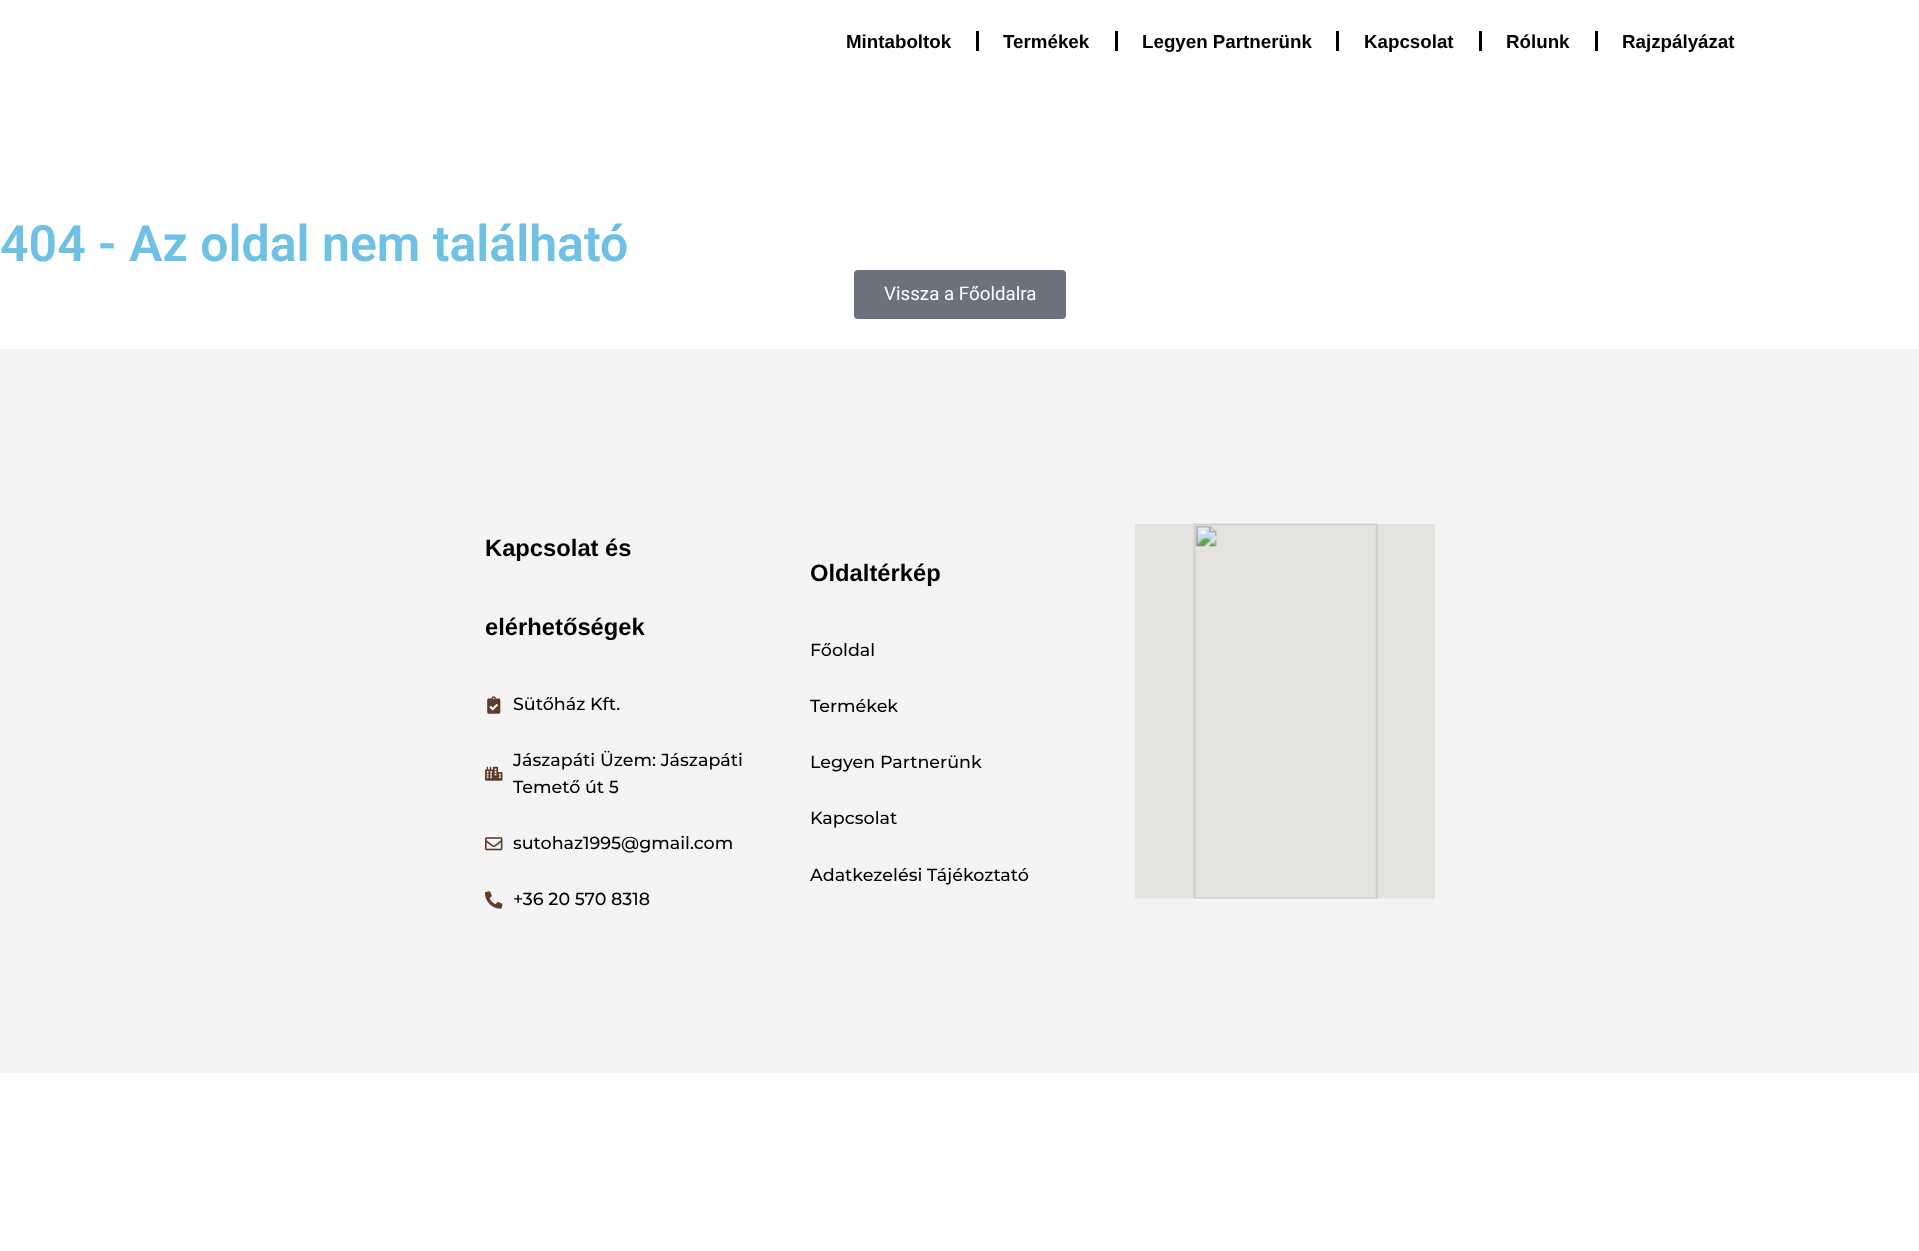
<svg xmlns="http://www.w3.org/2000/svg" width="1919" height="1251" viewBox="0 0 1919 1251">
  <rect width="100%" height="100%" fill="rgb(255,255,255)"/>
  <text x="846" y="48" font-family="Liberation Sans" font-size="18.75" font-weight="bold" fill="rgb(0,0,0)">Mintaboltok</text>
  <rect x="976" y="31" width="3" height="20" fill="rgb(0,0,0)"/>
  <text x="1003" y="48" font-family="Liberation Sans" font-size="18.75" font-weight="bold" fill="rgb(0,0,0)">Termékek</text>
  <rect x="1115" y="31" width="3" height="20" fill="rgb(0,0,0)"/>
  <text x="1142" y="48" font-family="Liberation Sans" font-size="18.75" font-weight="bold" fill="rgb(0,0,0)">Legyen Partnerünk</text>
  <rect x="1336" y="31" width="3" height="20" fill="rgb(0,0,0)"/>
  <text x="1364" y="48" font-family="Liberation Sans" font-size="18.75" font-weight="bold" fill="rgb(0,0,0)">Kapcsolat</text>
  <rect x="1479" y="31" width="3" height="20" fill="rgb(0,0,0)"/>
  <text x="1506" y="48" font-family="Liberation Sans" font-size="18.75" font-weight="bold" fill="rgb(0,0,0)">Rólunk</text>
  <rect x="1595" y="31" width="3" height="20" fill="rgb(0,0,0)"/>
  <text x="1622" y="48" font-family="Liberation Sans" font-size="18.75" font-weight="bold" fill="rgb(0,0,0)">Rajzpályázat</text>
  <text x="0" y="261" font-family="Roboto" font-size="50" font-weight="600" fill="rgb(110,193,228)">404 - Az oldal nem található</text>
  <rect x="854" y="270" width="212" height="49" rx="4" fill="rgb(105,114,125)"/>
  <text x="884" y="300" font-family="Roboto" font-size="18.75" fill="rgb(255,255,255)">Vissza a Főoldalra</text>
  <rect x="0" y="349" width="1919" height="724" fill="rgb(244,244,244)"/>
  <g font-family="Liberation Sans" font-size="23.75" font-weight="bold" fill="rgb(0,0,0)">
    <text x="485" y="556">Kapcsolat és</text>
    <text x="485" y="635">elérhetőségek</text>
  </g>
  <image x="487" y="696" width="14" height="18" href="pic1.png"/>
  <text x="513" y="710" font-family="Montserrat" font-size="17.5" font-weight="500" fill="rgb(0,0,0)">Sütőház Kft.</text>
  <image x="485" y="766" width="18" height="15" href="pic2.png"/>
  <g font-family="Montserrat" font-size="17.5" font-weight="500" fill="rgb(0,0,0)">
    <text>
      <tspan x="513" y="766">Jászapáti Üzem: Jászapáti</tspan>
      <tspan x="513" y="793">Temető út 5</tspan>
    </text>
  </g>
  <image x="485" y="837" width="18" height="14" href="pic3.png"/>
  <text x="513" y="849" font-family="Montserrat" font-size="17.5" font-weight="500" fill="rgb(0,0,0)">sutohaz1995@gmail.com</text>
  <image x="485" y="891" width="18" height="18" href="pic4.png"/>
  <text x="513" y="905" font-family="Montserrat" font-size="17.5" font-weight="500" fill="rgb(0,0,0)">+36 20 570 8318</text>
  <text x="810" y="581" font-family="Liberation Sans" font-size="23.75" font-weight="bold" fill="rgb(0,0,0)">Oldaltérkép</text>
  <g font-family="Montserrat" font-size="17.5" font-weight="500" fill="rgb(0,0,0)">
    <text x="810" y="656">Főoldal</text>
    <text x="810" y="712">Termékek</text>
    <text x="810" y="768">Legyen Partnerünk</text>
    <text x="810" y="824">Kapcsolat</text>
    <text x="810" y="881">Adatkezelési Tájékoztató</text>
  </g>
  <image x="1135" y="523" width="300" height="376" href="pic5.png"/>
</svg>
